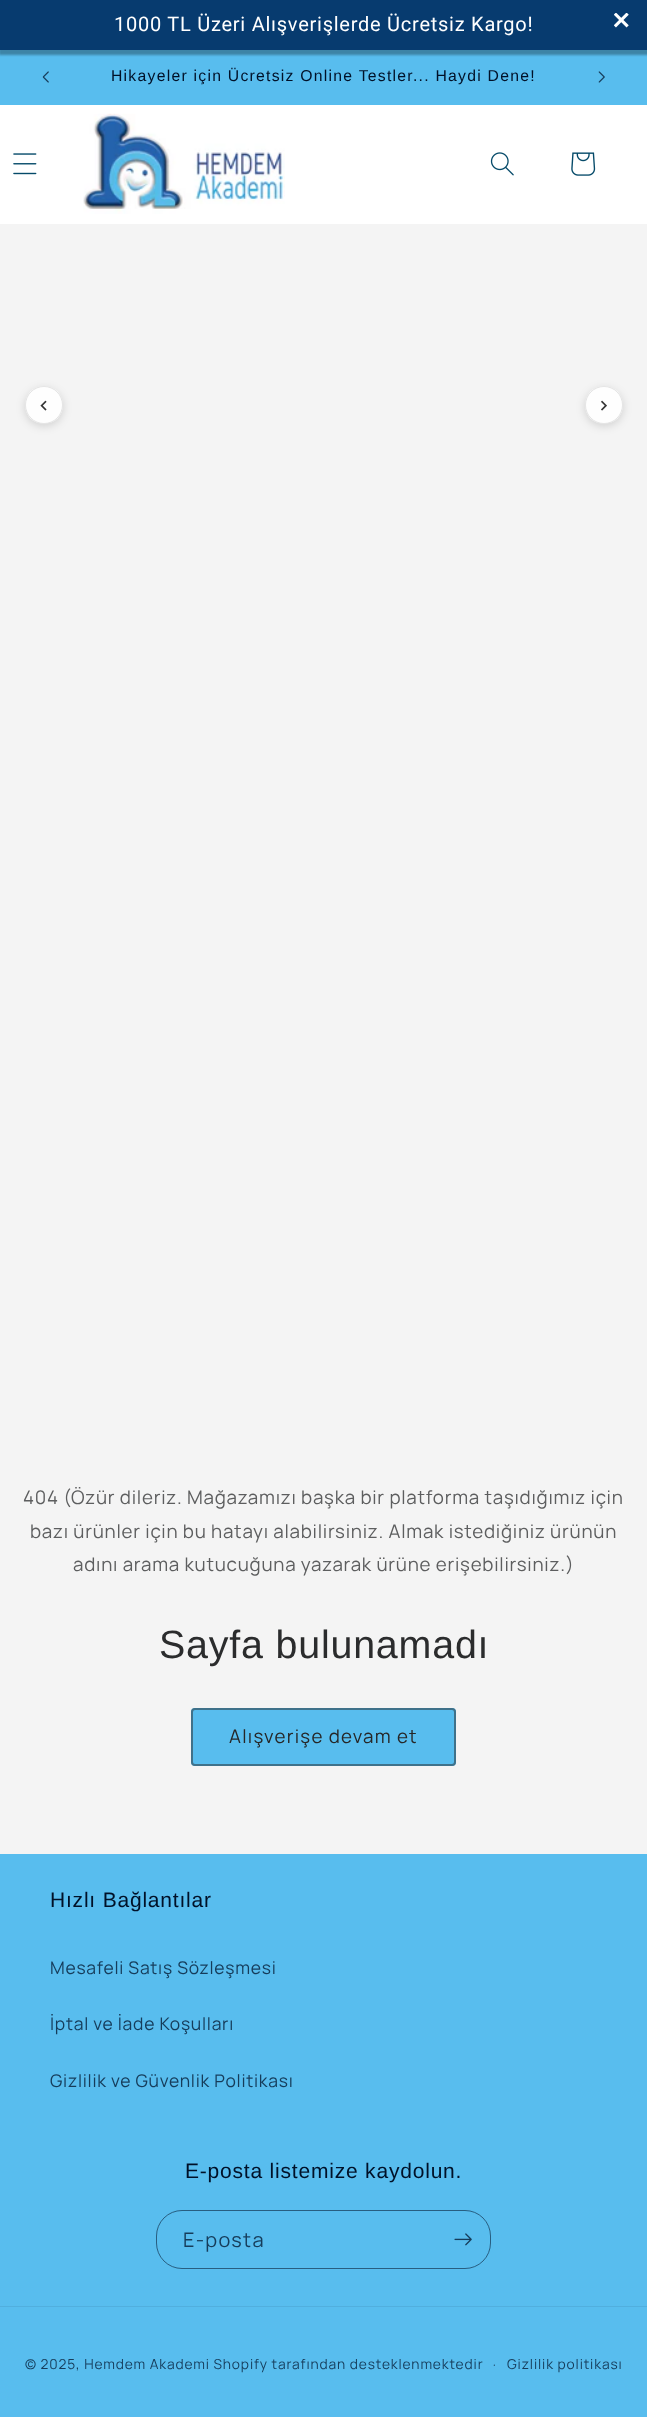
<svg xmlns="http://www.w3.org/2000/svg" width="647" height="2417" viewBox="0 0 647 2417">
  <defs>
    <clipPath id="clip1"><path d="M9 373H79V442H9ZM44 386C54.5 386 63 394.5 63 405C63 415.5 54.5 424 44 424C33.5 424 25 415.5 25 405C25 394.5 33.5 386 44 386Z" clip-rule="evenodd"/></clipPath>
    <clipPath id="clip2"><path d="M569 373H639V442H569ZM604 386C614.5 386 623 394.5 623 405C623 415.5 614.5 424 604 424C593.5 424 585 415.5 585 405C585 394.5 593.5 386 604 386Z" clip-rule="evenodd"/></clipPath>
  </defs>
  <rect width="100%" height="100%" fill="rgb(244,244,244)"/>
  <rect x="0" y="50" width="647" height="55" fill="rgb(88,189,238)"/>
  <rect x="-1" y="3" width="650" height="52" fill="rgba(0,0,0,0.3)" filter="blur(1px)"/>
  <rect x="0" y="0" width="647" height="50" fill="rgb(7,59,111)"/>
  <text x="114" y="31" font-family="Roboto" font-size="20" letter-spacing="0.75" fill="rgb(255,255,255)">1000 TL Üzeri Alışverişlerde Ücretsiz Kargo!</text>
  <image x="614" y="13" width="15" height="15" href="pic1.png"/>
  <image x="42" y="71" width="7" height="12" href="pic2.png"/>
  <text x="111" y="81" font-family="Liberation Sans" font-size="15.75" letter-spacing="1.25" fill="rgb(0,17,40)">Hikayeler için Ücretsiz Online Testler... Haydi Dene!</text>
  <image x="598" y="71" width="7" height="12" href="pic3.png"/>
  <rect x="0" y="105" width="647" height="119" fill="rgb(255,255,255)"/>
  <image x="13" y="153" width="24" height="22" href="pic4.png"/>
  <image x="83" y="113" width="202" height="101" href="pic5.png"/>
  <image x="490" y="152" width="24" height="24" href="pic6.png"/>
  <image x="571" y="152" width="25" height="24" href="pic7.png"/>
  <g clip-path="url(#clip1)">
    <rect x="25" y="389" width="38" height="37" rx="18.5" fill="rgba(0,0,0,0.15)" filter="blur(5px)"/>
  </g>
  <circle cx="44" cy="405" r="19" fill="rgba(255,255,255,0.9)"/>
  <circle cx="44" cy="405" r="18.5" fill="none" stroke="rgba(0,0,0,0.1)"/>
  <image x="40" y="400" width="7" height="11" href="pic8.png"/>
  <g clip-path="url(#clip2)">
    <rect x="585" y="389" width="38" height="37" rx="18.5" fill="rgba(0,0,0,0.15)" filter="blur(5px)"/>
  </g>
  <circle cx="604" cy="405" r="19" fill="rgba(255,255,255,0.9)"/>
  <circle cx="604" cy="405" r="18.5" fill="none" stroke="rgba(0,0,0,0.1)"/>
  <image x="601" y="400" width="6" height="11" href="pic9.png"/>
  <g font-family="Manrope" font-size="18.75" letter-spacing="0.75" fill="rgb(93,94,95)">
    <text x="23" y="1504">404 (Özür dileriz. Mağazamızı başka bir platforma taşıdığımız için</text>
    <text x="30" y="1538">bazı ürünler için bu hatayı alabilirsiniz. Almak istediğiniz ürünün</text>
    <text x="73" y="1571">adını arama kutucuğuna yazarak ürüne erişebilirsiniz.)</text>
  </g>
  <text x="159" y="1658" font-family="Liberation Sans" font-size="39.4" letter-spacing="0.8" fill="rgb(43,44,45)">Sayfa bulunamadı</text>
  <rect x="191" y="1708" width="265" height="58" rx="4" fill="rgb(88,189,238)"/>
  <rect x="191.5" y="1708.5" width="264" height="57" rx="3.5" fill="none" stroke="rgb(88,189,238)"/>
  <rect x="192" y="1709" width="263" height="56" rx="3" fill="none" stroke="rgba(38,38,38,0.5)" stroke-width="2"/>
  <text x="229" y="1743" font-family="Manrope" font-size="18.75" letter-spacing="1.25" fill="rgb(38,38,38)">Alışverişe devam et</text>
  <rect x="0" y="1854" width="647" height="563" fill="rgb(88,189,238)"/>
  <text x="50" y="1907" font-family="Liberation Sans" font-size="21" letter-spacing="0.8" fill="rgb(0,17,40)">Hızlı Bağlantılar</text>
  <g font-family="Manrope" font-size="17.5" letter-spacing="0.75" fill="rgb(22,60,90)">
    <text x="50" y="1974">Mesafeli Satış Sözleşmesi</text>
    <text x="50" y="2030">İptal ve İade Koşulları</text>
    <text x="50" y="2087">Gizlilik ve Güvenlik Politikası</text>
  </g>
  <text x="185" y="2178" font-family="Liberation Sans" font-size="21" letter-spacing="0.8" fill="rgb(0,17,40)">E-posta listemize kaydolun.</text>
  <rect x="156.5" y="2210.5" width="334" height="58" rx="25.5" fill="none" stroke="rgb(40,94,129)"/>
  <text x="183" y="2247" font-family="Manrope" font-size="20" letter-spacing="1.25" fill="rgb(22,60,90)">E-posta</text>
  <image x="454" y="2233" width="18" height="13" href="pic10.png"/>
  <rect x="0" y="2306" width="647" height="1" fill="rgb(81,175,222)"/>
  <text x="25" y="2369" font-family="Manrope" font-size="13.75" letter-spacing="0.88" fill="rgb(22,60,90)">© 2025, Hemdem Akademi Shopify tarafından desteklenmektedir</text>
  <text x="493" y="2369" font-family="Manrope" font-size="12" letter-spacing="0.88" fill="rgb(22,60,90)">·</text>
  <text x="507" y="2369" font-family="Manrope" font-size="13.75" letter-spacing="0.88" fill="rgb(22,60,90)">Gizlilik politikası</text>
</svg>
